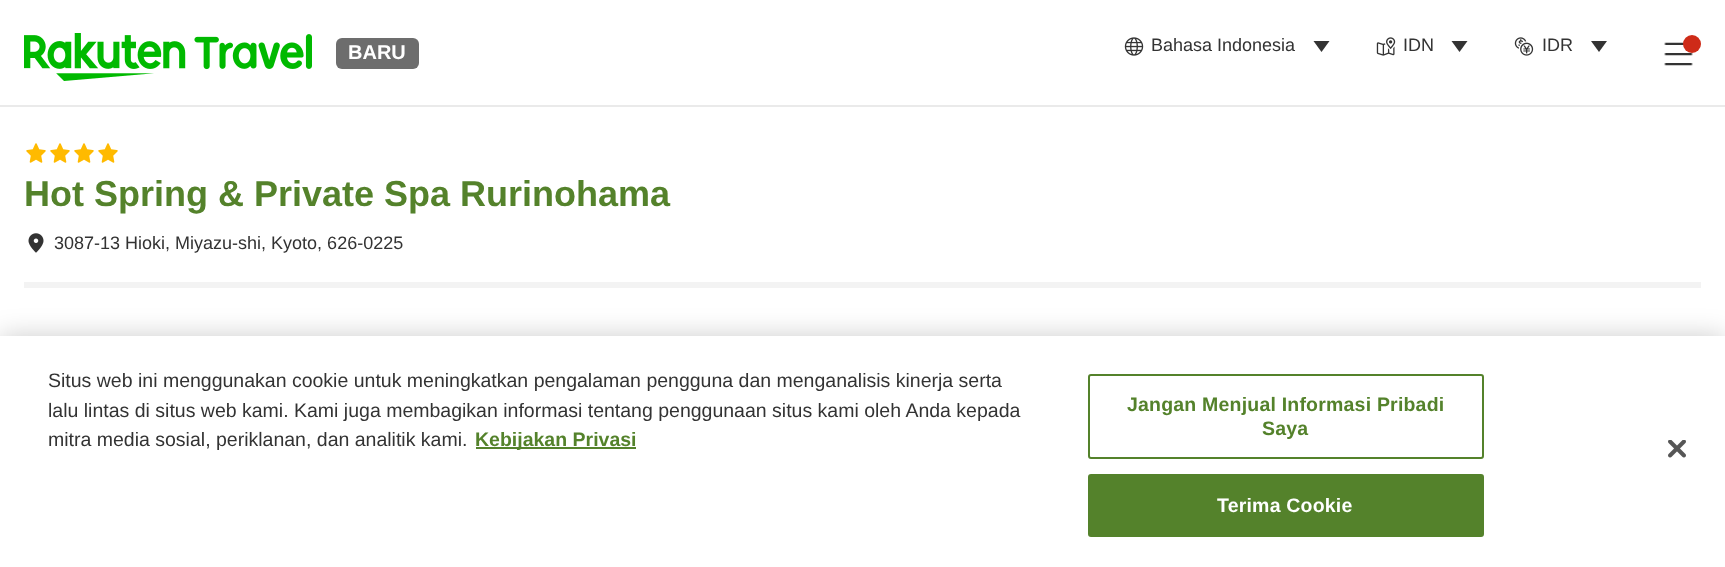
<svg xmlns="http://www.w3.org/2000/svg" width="1725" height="567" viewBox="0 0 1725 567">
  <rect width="100%" height="100%" fill="rgb(255,255,255)"/>
  <rect x="0" y="105" width="1725" height="2" fill="rgb(234,234,234)"/>
  <image x="24" y="33" width="288" height="48" href="pic1.png"/>
  <rect x="336" y="38" width="83" height="31" rx="6" fill="rgb(109,109,109)"/>
  <text x="348" y="59" font-family="Liberation Sans" font-size="20" font-weight="bold" fill="rgb(255,255,255)">BARU</text>
  <image x="1124" y="37" width="20" height="19" href="pic2.png"/>
  <text x="1151" y="51" font-family="Liberation Sans" font-size="18" fill="rgb(51,51,51)">Bahasa Indonesia</text>
  <path d="M1321.5 52L1313.5 41H1329.5Z" fill="rgb(51,51,51)" fill-rule="evenodd"/>
  <image x="1376" y="37" width="20" height="19" href="pic3.png"/>
  <text x="1403" y="51" font-family="Liberation Sans" font-size="18" fill="rgb(51,51,51)">IDN</text>
  <path d="M1459.5 52L1451.5 41H1467.5Z" fill="rgb(51,51,51)" fill-rule="evenodd"/>
  <image x="1514" y="37" width="20" height="19" href="pic4.png"/>
  <text x="1542" y="51" font-family="Liberation Sans" font-size="18" fill="rgb(51,51,51)">IDR</text>
  <path d="M1599 52L1591 41H1607Z" fill="rgb(51,51,51)" fill-rule="evenodd"/>
  <image x="1664" y="42" width="29" height="24" href="pic5.png"/>
  <circle cx="1692" cy="44" r="9" fill="rgb(206,43,24)"/>
  <rect x="24" y="282" width="1677" height="6" fill="rgb(243,243,243)"/>
  <image x="26" y="143" width="20" height="20" href="pic6.png"/>
  <image x="50" y="143" width="20" height="20" href="pic6.png"/>
  <image x="74" y="143" width="20" height="20" href="pic6.png"/>
  <image x="98" y="143" width="20" height="20" href="pic6.png"/>
  <text x="24" y="206" font-family="Liberation Sans" font-size="36" font-weight="bold" fill="rgb(84,130,43)">Hot Spring &amp; Private Spa Rurinohama</text>
  <image x="28" y="233" width="16" height="20" href="pic7.png"/>
  <text x="54" y="249" font-family="Liberation Sans" font-size="18" fill="rgb(51,51,51)">3087-13 Hioki, Miyazu-shi, Kyoto, 626-0225</text>
  <rect x="0" y="336" width="1725" height="231" fill="rgba(0,0,0,0.2)" filter="blur(13.5px)"/>
  <rect x="0" y="336" width="1725" height="231" fill="rgb(255,255,255)"/>
  <g font-family="Liberation Sans" font-size="19.5" fill="rgb(51,51,51)">
    <text>
      <tspan x="48" y="387">Situs web ini menggunakan cookie untuk meningkatkan pengalaman pengguna dan menganalisis kinerja serta</tspan>
      <tspan x="48" y="417">lalu lintas di situs web kami. Kami juga membagikan informasi tentang penggunaan situs kami oleh Anda kepada</tspan>
      <tspan x="48" y="446">mitra media sosial, periklanan, dan analitik kami.</tspan>
    </text>
  </g>
  <rect x="476" y="447" width="160" height="2" fill="rgb(84,130,43)"/>
  <text x="475" y="446" font-family="Liberation Sans" font-size="19.5" font-weight="bold" fill="rgb(84,130,43)">Kebijakan Privasi</text>
  <rect x="1089" y="375" width="394" height="83" rx="2" fill="none" stroke="rgb(84,130,43)" stroke-width="2"/>
  <g font-family="Liberation Sans" font-size="19.5" font-weight="bold" letter-spacing="0.2" fill="rgb(84,130,43)">
    <text x="1127" y="411">Jangan Menjual Informasi Pribadi</text>
    <text x="1262" y="435">Saya</text>
  </g>
  <rect x="1089" y="475" width="394" height="61" rx="2" fill="rgb(84,130,43)" stroke="rgb(84,130,43)" stroke-width="2"/>
  <text x="1217" y="512" font-family="Liberation Sans" font-size="19.5" font-weight="bold" letter-spacing="0.2" fill="rgb(255,255,255)">Terima Cookie</text>
  <image x="1668" y="440" width="18" height="18" href="pic8.png"/>
</svg>
